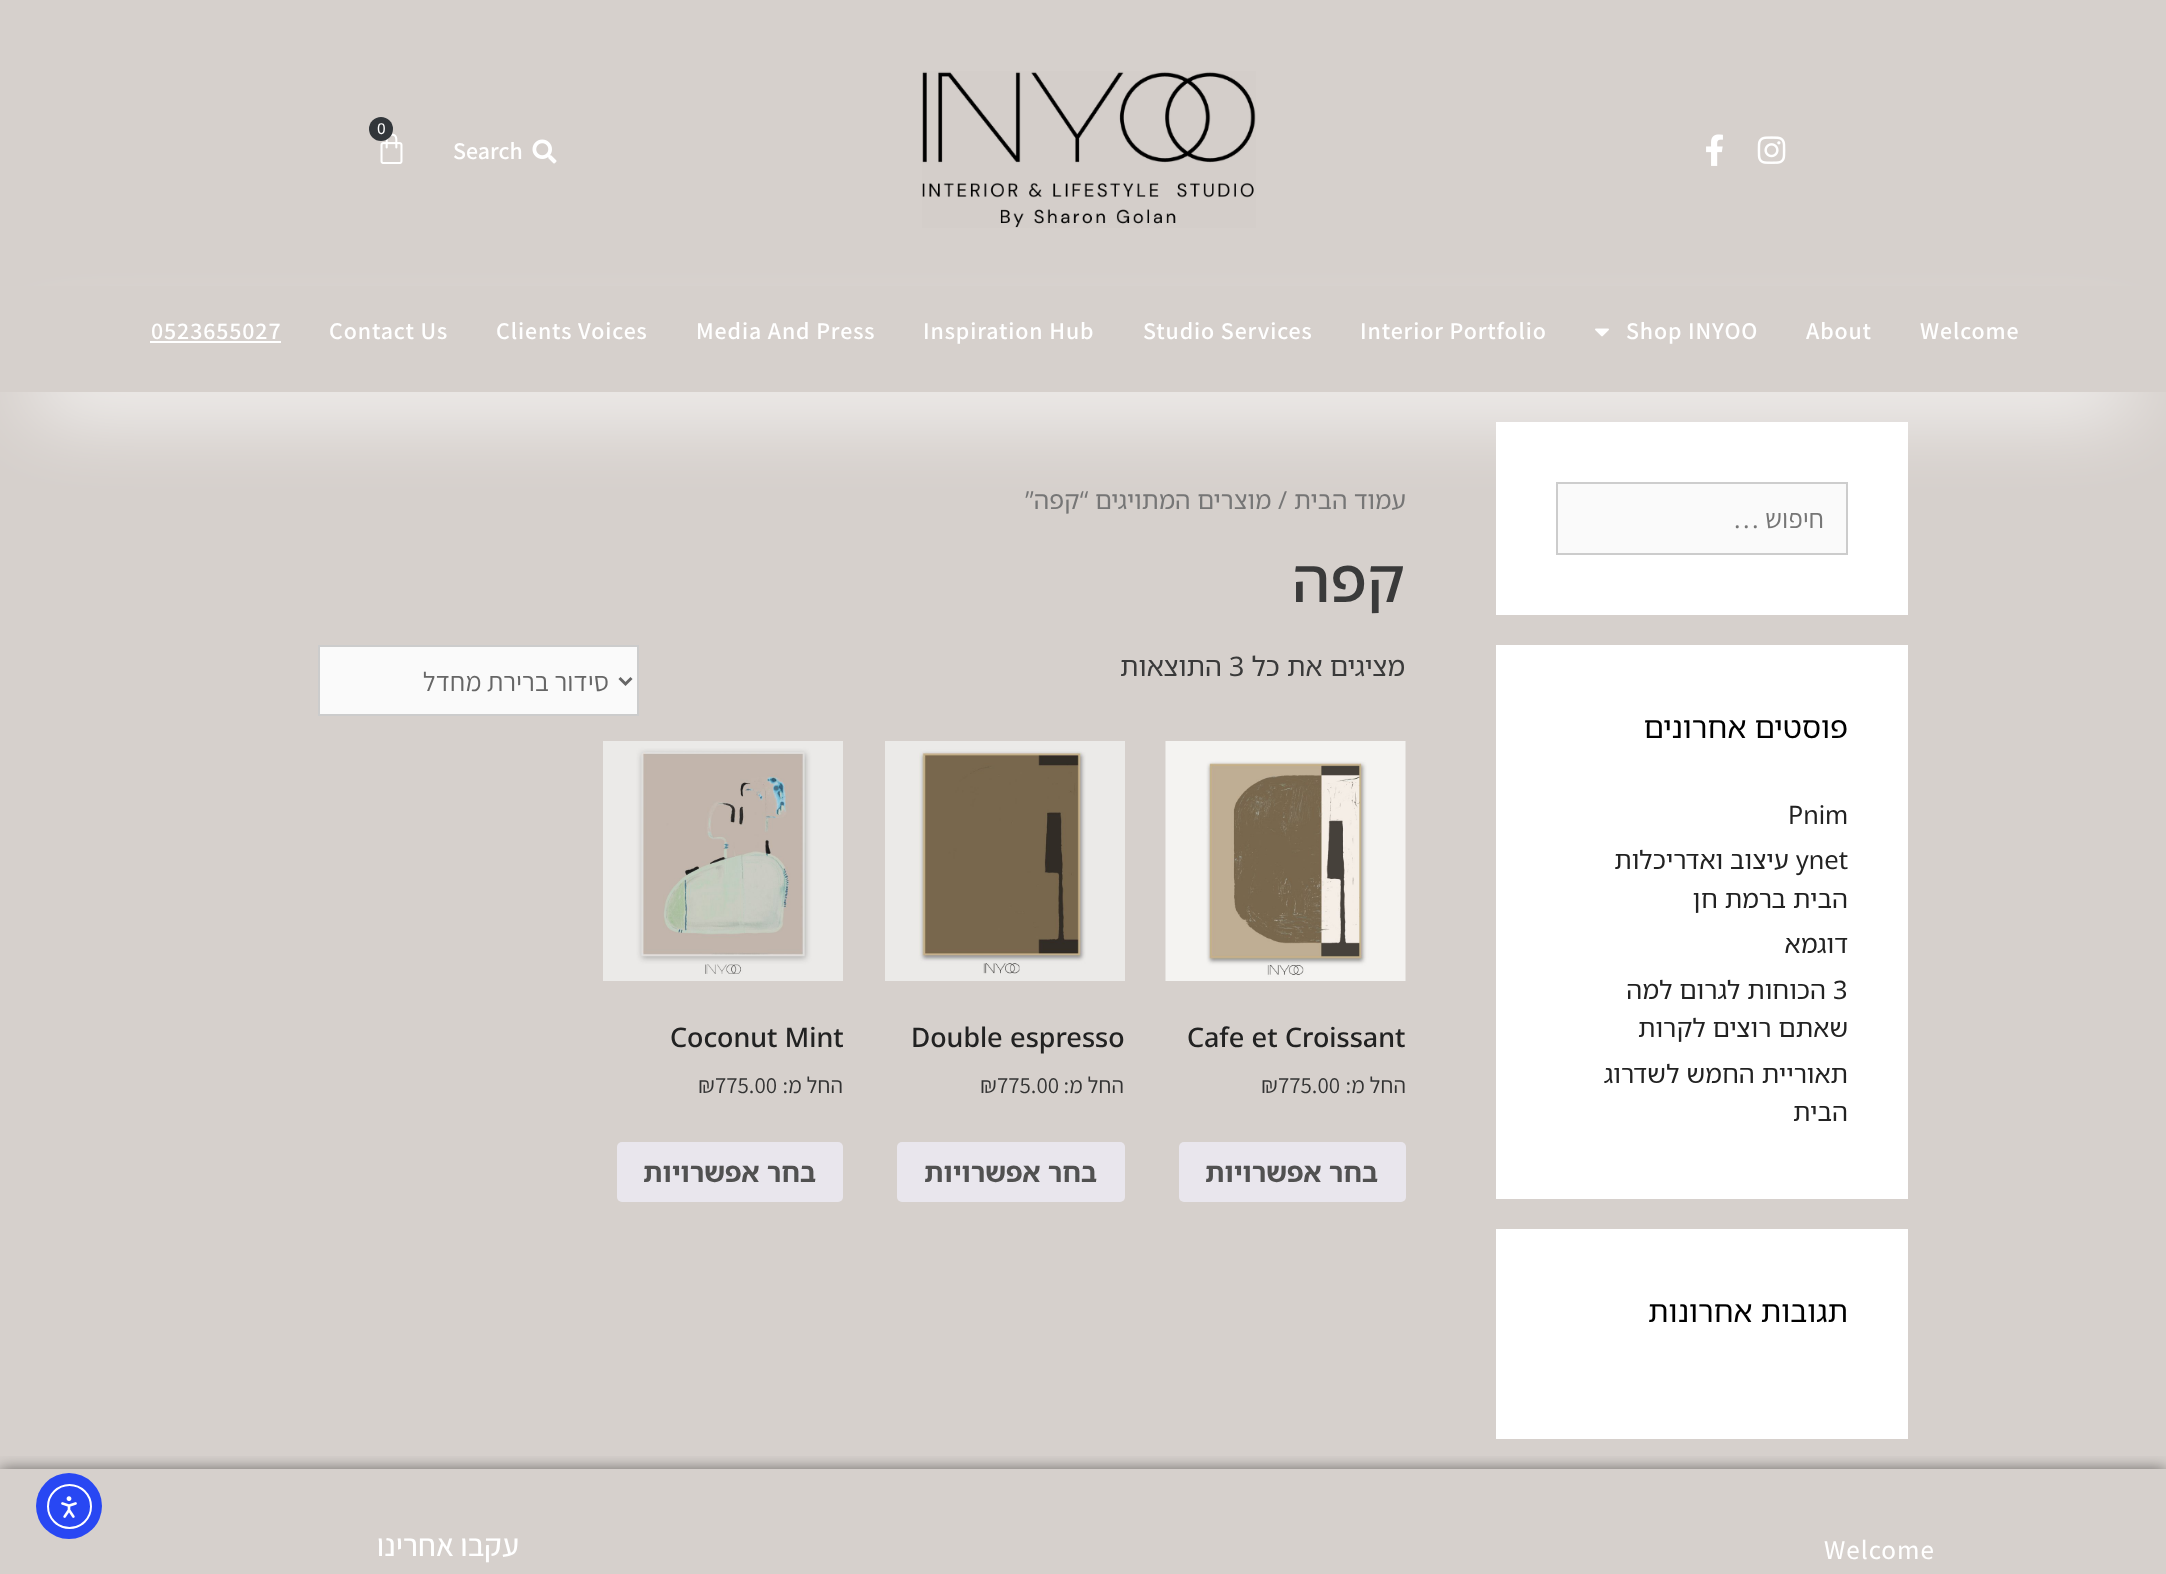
<svg xmlns="http://www.w3.org/2000/svg" width="2166" height="1574" viewBox="0 0 2166 1574">
  <defs>
    <clipPath id="clip1"><rect x="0" y="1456" width="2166" height="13"/></clipPath>
  </defs>
  <rect width="100%" height="100%" fill="rgb(214,208,204)"/>
  <image x="1757" y="136" width="29" height="28" href="pic1.png"/>
  <image x="1706" y="134" width="17" height="32" href="pic2.png"/>
  <image x="922" y="71" width="334" height="157" href="pic3.png"/>
  <image x="380" y="133" width="23" height="31" href="pic4.png"/>
  <circle cx="381" cy="129" r="12" fill="rgb(50,54,58)"/>
  <text x="377" y="134" font-family="Noto Sans Hebrew" font-size="15" fill="rgb(255,255,255)">0</text>
  <image x="532" y="139" width="25" height="25" href="pic5.png"/>
  <text x="453" y="159" font-family="Assistant" font-size="24" font-weight="600" fill="rgb(255,255,255)">Search</text>
  <rect x="1496" y="422" width="412" height="193" fill="rgb(255,255,255)"/>
  <rect x="1557" y="483" width="290" height="71" fill="rgb(250,250,250)" stroke="rgb(204,204,204)" stroke-width="2"/>
  <rect x="33" y="354" width="2100" height="54" fill="rgb(255,255,255)" filter="blur(42px)"/>
  <rect x="0" y="286" width="2166" height="106" fill="rgb(214,208,204)"/>
  <g font-family="Assistant" font-size="24" font-weight="600" letter-spacing="0.9" fill="rgb(255,255,255)">
    <text x="1920" y="339">Welcome</text>
    <text x="1806" y="339">About</text>
    <text x="1626" y="339">Shop INYOO</text>
  </g>
  <image x="1595" y="328" width="14" height="9" href="pic6.png"/>
  <g font-family="Assistant" font-size="24" font-weight="600" letter-spacing="0.9" fill="rgb(255,255,255)">
    <text x="1360" y="339">Interior Portfolio</text>
    <text x="1143" y="339">Studio Services</text>
    <text x="923" y="339">Inspiration Hub</text>
    <text x="696" y="339">Media And Press</text>
    <text x="496" y="339">Clients Voices</text>
    <text x="329" y="339">Contact Us</text>
    <text x="151" y="339">0523655027</text>
  </g>
  <rect x="150" y="341" width="131" height="2" fill="rgb(255,255,255)"/>
  <text x="1824" y="528" font-family="Assistant" font-size="27" direction="rtl" fill="rgb(118,118,118)">חיפוש …</text>
  <rect x="1496" y="645" width="412" height="554" fill="rgb(255,255,255)"/>
  <text x="1848" y="738" font-family="Noto Sans Hebrew" font-size="30" direction="rtl" fill="rgb(0,0,0)">פוסטים אחרונים</text>
  <g font-family="Noto Sans Hebrew" font-size="25.5" fill="rgb(34,34,34)">
    <text x="1788" y="824">Pnim</text>
    <text x="1796" y="869">ynet</text>
  </g>
  <g font-family="Noto Sans Hebrew" font-size="25.5" direction="rtl" fill="rgb(34,34,34)">
    <text x="1789" y="869">עיצוב ואדריכלות</text>
    <text>
      <tspan x="1848" y="908">הבית ברמת חן</tspan>
      <tspan x="1848" y="953">דוגמא</tspan>
    </text>
  </g>
  <text x="1833" y="999" font-family="Noto Sans Hebrew" font-size="25.5" fill="rgb(34,34,34)">3</text>
  <g font-family="Noto Sans Hebrew" font-size="25.5" direction="rtl" fill="rgb(34,34,34)">
    <text x="1826" y="999">הכוחות לגרום למה</text>
    <text>
      <tspan x="1848" y="1037">שאתם רוצים לקרות</tspan>
      <tspan x="1848" y="1083">תאוריית החמש לשדרוג</tspan>
      <tspan x="1848" y="1121">הבית</tspan>
    </text>
  </g>
  <rect x="1496" y="1229" width="412" height="210" fill="rgb(255,255,255)"/>
  <text x="1848" y="1322" font-family="Noto Sans Hebrew" font-size="30" direction="rtl" fill="rgb(0,0,0)">תגובות אחרונות</text>
  <g font-family="Noto Sans Hebrew" font-size="24.75" direction="rtl" fill="rgb(118,118,118)">
    <text x="1406" y="509">עמוד הבית</text>
    <text x="1287" y="509">/ מוצרים המתויגים “קפה”</text>
  </g>
  <text x="1405" y="602" font-family="Noto Sans Hebrew" font-size="60" font-weight="500" direction="rtl" fill="rgb(58,58,58)">קפה</text>
  <text x="1405" y="676" font-family="Noto Sans Hebrew" font-size="27" direction="rtl" fill="rgb(58,58,58)">מציגים את כל</text>
  <text x="1229" y="676" font-family="Noto Sans Hebrew" font-size="27" fill="rgb(58,58,58)">3</text>
  <text x="1222" y="676" font-family="Noto Sans Hebrew" font-size="27" direction="rtl" fill="rgb(58,58,58)">התוצאות</text>
  <rect x="319" y="646" width="319" height="69" fill="rgb(250,250,250)" stroke="rgb(204,204,204)" stroke-width="2"/>
  <path d="M619.5 678L625.5 684L631.5 678" fill="none" stroke="rgb(102,102,102)" stroke-width="3"/>
  <text x="609" y="691" font-family="Assistant" font-size="27" direction="rtl" fill="rgb(102,102,102)">סידור ברירת מחדל</text>
  <image x="1165" y="741" width="241" height="240" href="pic7.png"/>
  <text x="1187" y="1047" font-family="Noto Sans Hebrew" font-size="27" font-weight="500" fill="rgb(34,34,34)">Cafe et Croissant</text>
  <text x="1406" y="1093" font-family="Assistant" font-size="23" direction="rtl" fill="rgb(51,51,51)">החל מ:</text>
  <text x="1261" y="1093" font-family="Assistant" font-size="23" fill="rgb(51,51,51)">₪775.00</text>
  <rect x="1179" y="1142" width="227" height="60" rx="5" fill="rgb(233,230,237)"/>
  <text x="1378" y="1182" font-family="Noto Sans Hebrew" font-size="27" font-weight="bold" direction="rtl" fill="rgb(81,81,81)">בחר אפשרויות</text>
  <image x="885" y="741" width="240" height="240" href="pic8.png"/>
  <text x="911" y="1047" font-family="Noto Sans Hebrew" font-size="27" font-weight="500" fill="rgb(34,34,34)">Double espresso</text>
  <text x="1124" y="1093" font-family="Assistant" font-size="23" direction="rtl" fill="rgb(51,51,51)">החל מ:</text>
  <text x="980" y="1093" font-family="Assistant" font-size="23" fill="rgb(51,51,51)">₪775.00</text>
  <rect x="897" y="1142" width="228" height="60" rx="5" fill="rgb(233,230,237)"/>
  <text x="1097" y="1182" font-family="Noto Sans Hebrew" font-size="27" font-weight="bold" direction="rtl" fill="rgb(81,81,81)">בחר אפשרויות</text>
  <image x="603" y="741" width="240" height="240" href="pic9.png"/>
  <text x="670" y="1047" font-family="Noto Sans Hebrew" font-size="27" font-weight="500" fill="rgb(34,34,34)">Coconut Mint</text>
  <text x="843" y="1093" font-family="Assistant" font-size="23" direction="rtl" fill="rgb(51,51,51)">החל מ:</text>
  <text x="698" y="1093" font-family="Assistant" font-size="23" fill="rgb(51,51,51)">₪775.00</text>
  <rect x="617" y="1142" width="226" height="60" rx="5" fill="rgb(233,230,237)"/>
  <text x="816" y="1182" font-family="Noto Sans Hebrew" font-size="27" font-weight="bold" direction="rtl" fill="rgb(81,81,81)">בחר אפשרויות</text>
  <g clip-path="url(#clip1)">
    <rect x="0" y="1469" width="2166" height="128" fill="rgba(0,0,0,0.5)" filter="blur(7.5px)"/>
  </g>
  <circle cx="69" cy="1506" r="33" fill="rgb(40,71,243)"/>
  <circle cx="69.5" cy="1506.5" r="21.5" fill="none" stroke="rgb(255,255,255)" stroke-width="2"/>
  <image x="61" y="1496" width="16" height="22" href="pic10.png"/>
  <text x="1824" y="1559" font-family="Assistant" font-size="27" font-weight="500" letter-spacing="1" fill="rgb(255,255,255)">Welcome</text>
  <text x="519" y="1556" font-family="Assistant" font-size="31.5" font-weight="500" direction="rtl" fill="rgb(255,255,255)">עקבו אחרינו</text>
</svg>
